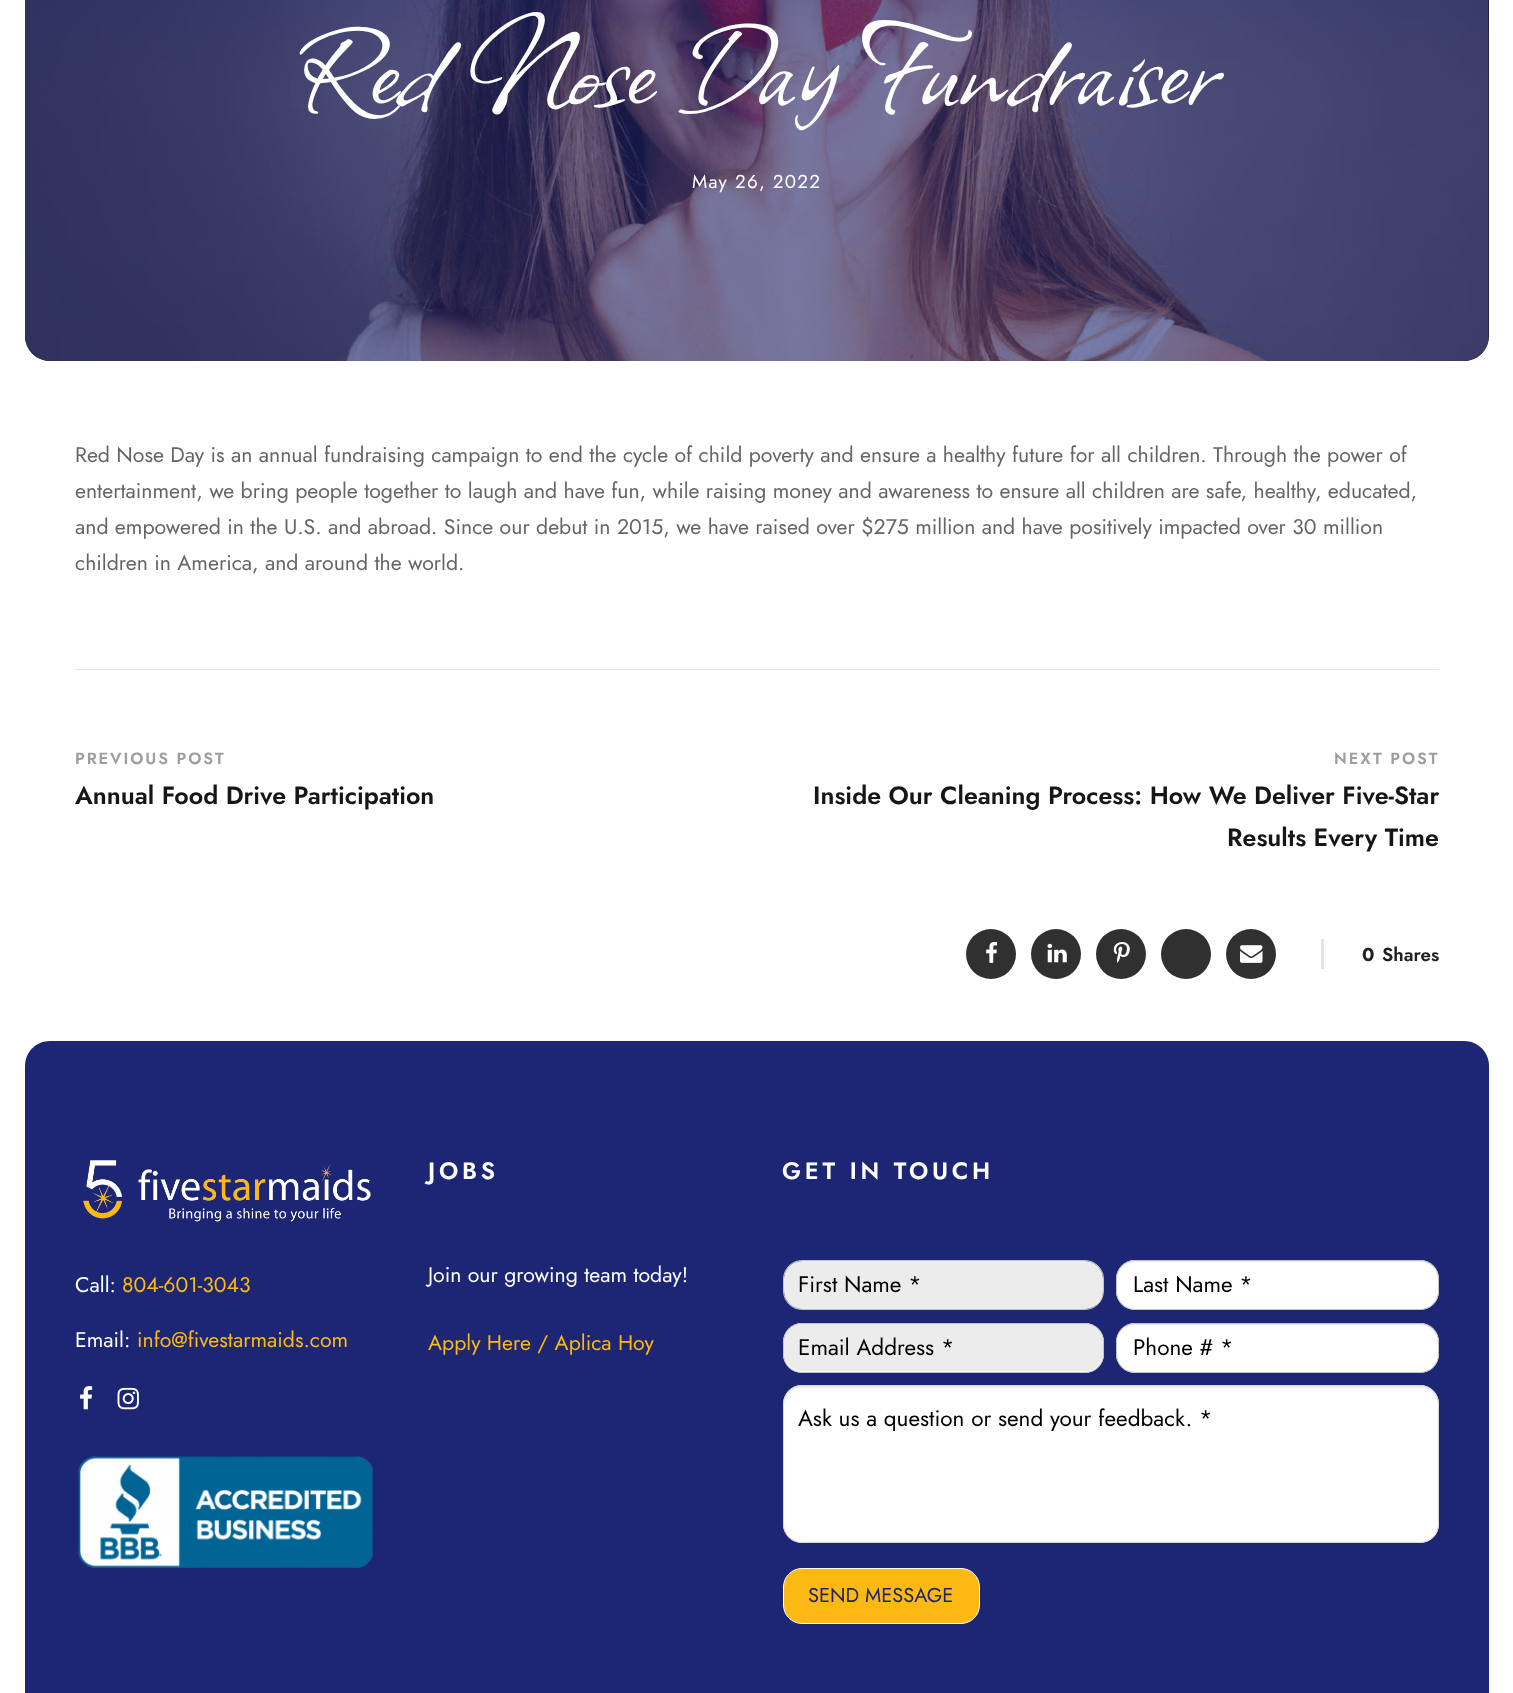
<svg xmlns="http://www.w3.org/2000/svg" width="1513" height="1693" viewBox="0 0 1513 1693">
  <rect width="100%" height="100%" fill="rgb(255,255,255)"/>
  <rect x="25" y="-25" width="1464" height="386" rx="25" fill="rgb(0,0,0)"/>
  <image x="25" y="0" width="1464" height="361" href="pic1.png"/>
  <text x="298" y="102" font-family="Allison" font-size="137.5" letter-spacing="0.6" fill="rgb(255,255,255)">Red Nose Day Fundraiser</text>
  <text x="692" y="188" font-family="Jost" font-size="18.75" letter-spacing="1.25" fill="rgb(255,255,255)">May 26, 2022</text>
  <g font-family="Jost" font-size="21.25" fill="rgb(101,101,101)">
    <text>
      <tspan x="75" y="462">Red Nose Day is an annual fundraising campaign to end the cycle of child poverty and ensure a healthy future for all children. Through the power of</tspan>
      <tspan x="75" y="498">entertainment, we bring people together to laugh and have fun, while raising money and awareness to ensure all children are safe, healthy, educated,</tspan>
      <tspan x="75" y="534">and empowered in the U.S. and abroad. Since our debut in 2015, we have raised over $275 million and have positively impacted over 30 million</tspan>
      <tspan x="75" y="570">children in America, and around the world.</tspan>
    </text>
  </g>
  <rect x="75" y="669" width="1364" height="1" fill="rgb(230,230,230)"/>
  <text x="75" y="764" font-family="Jost" font-size="16.25" font-weight="600" letter-spacing="1.9" fill="rgb(158,158,158)">PREVIOUS POST</text>
  <text x="75" y="804" font-family="Jost" font-size="25" font-weight="600" fill="rgb(22,22,22)">Annual Food Drive Participation</text>
  <text x="1334" y="764" font-family="Jost" font-size="16.25" font-weight="600" letter-spacing="1.9" fill="rgb(158,158,158)">NEXT POST</text>
  <g font-family="Jost" font-size="25" font-weight="600" fill="rgb(22,22,22)">
    <text x="813" y="804">Inside Our Cleaning Process: How We Deliver Five-Star</text>
    <text x="1227" y="846">Results Every Time</text>
  </g>
  <circle cx="991" cy="954" r="25" fill="rgb(48,48,48)"/>
  <image x="986" y="942" width="12" height="21" href="pic2.png"/>
  <circle cx="1056" cy="954" r="25" fill="rgb(48,48,48)"/>
  <image x="1047" y="943" width="20" height="20" href="pic3.png"/>
  <circle cx="1121" cy="954" r="25" fill="rgb(48,48,48)"/>
  <image x="1113" y="942" width="17" height="21" href="pic4.png"/>
  <circle cx="1186" cy="954" r="25" fill="rgb(48,48,48)"/>
  <circle cx="1251" cy="954" r="25" fill="rgb(48,48,48)"/>
  <image x="1240" y="945" width="23" height="18" href="pic5.png"/>
  <text x="1362" y="961" font-family="Jost" font-size="18.75" font-weight="bold" fill="rgb(32,32,32)">0</text>
  <rect x="1321" y="939" width="3" height="30" fill="rgb(229,229,229)"/>
  <text x="1382" y="961" font-family="Jost" font-size="18.75" font-weight="600" fill="rgb(32,32,32)">Shares</text>
  <path d="M50 1041H1464C1478 1041 1489 1052 1489 1066V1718H25V1066C25 1052 36 1041 50 1041Z" fill="rgb(28,38,116)"/>
  <image x="83" y="1160" width="288" height="62" href="pic6.png"/>
  <text x="75" y="1292" font-family="Jost" font-size="21.25" fill="rgb(255,255,255)">Call:</text>
  <text x="122" y="1292" font-family="Jost" font-size="21.25" fill="rgb(253,185,19)">804-601-3043</text>
  <text x="75" y="1347" font-family="Jost" font-size="21.25" fill="rgb(255,255,255)">Email:</text>
  <text x="137" y="1347" font-family="Jost" font-size="21.25" fill="rgb(253,185,19)">info@fivestarmaids.com</text>
  <image x="80" y="1386" width="13" height="24" href="pic7.png"/>
  <image x="117" y="1387" width="22" height="23" href="pic8.png"/>
  <image x="78" y="1456" width="295" height="112" href="pic9.png"/>
  <text x="428" y="1179" font-family="Jost" font-size="23.75" font-weight="600" letter-spacing="3.75" fill="rgb(255,255,255)">JOBS</text>
  <text x="428" y="1282" font-family="Jost" font-size="21.25" fill="rgb(255,255,255)">Join our growing team today!</text>
  <text x="428" y="1350" font-family="Jost" font-size="21.25" fill="rgb(253,185,19)">Apply Here / Aplica Hoy</text>
  <text x="782" y="1179" font-family="Jost" font-size="23.75" font-weight="600" letter-spacing="3.75" fill="rgb(255,255,255)">GET IN TOUCH</text>
  <path d="M802 1261C792 1261 784 1269 784 1279V1291C784 1301 792 1309 802 1309H1085C1091 1309 1096 1306 1100 1302C1102 1299 1103 1295 1103 1291V1279C1103 1269 1095 1261 1085 1261Z" fill="rgb(236,236,236)"/>
  <rect x="783.5" y="1260.5" width="320" height="49" rx="18.5" fill="none" stroke="rgb(191,195,200)"/>
  <text x="798" y="1292" font-family="Jost" font-size="22.5" fill="rgb(0,0,0)">First Name *</text>
  <rect x="1116" y="1260" width="323" height="50" rx="19" fill="rgb(255,255,255)"/>
  <path d="M1135 1262H1420C1430 1262 1438 1270 1438 1280V1279C1438 1269 1430 1261 1420 1261H1136C1126 1261 1118 1269 1118 1279V1280C1118 1270 1125 1262 1135 1262Z" fill="rgb(236,236,236)"/>
  <rect x="1116.5" y="1260.5" width="322" height="49" rx="18.5" fill="none" stroke="rgb(191,195,200)"/>
  <text x="1133" y="1292" font-family="Jost" font-size="22.5" fill="rgb(0,0,0)">Last Name *</text>
  <rect x="783" y="1323" width="321" height="50" rx="19" fill="rgb(255,255,255)"/>
  <path d="M802 1324C792 1324 784 1332 784 1342V1353C784 1363 792 1371 802 1371H1085C1092 1371 1098 1367 1101 1361C1102 1359 1103 1356 1103 1353V1342C1103 1332 1095 1324 1085 1324Z" fill="rgb(236,236,236)"/>
  <rect x="783.5" y="1323.5" width="320" height="49" rx="18.5" fill="none" stroke="rgb(191,195,200)"/>
  <text x="798" y="1355" font-family="Jost" font-size="22.5" fill="rgb(0,0,0)">Email Address *</text>
  <rect x="1116" y="1323" width="323" height="50" rx="19" fill="rgb(255,255,255)"/>
  <path d="M1135 1325H1420C1430 1325 1438 1333 1438 1342C1438 1332 1430 1324 1420 1324H1136C1126 1324 1118 1332 1118 1342C1118 1333 1125 1325 1135 1325Z" fill="rgb(236,236,236)"/>
  <rect x="1116.5" y="1323.5" width="322" height="49" rx="18.5" fill="none" stroke="rgb(191,195,200)"/>
  <text x="1133" y="1355" font-family="Jost" font-size="22.5" fill="rgb(0,0,0)">Phone # *</text>
  <rect x="783" y="1385" width="656" height="158" rx="19" fill="rgb(255,255,255)"/>
  <path d="M801 1388H1420C1430 1388 1438 1395 1438 1405V1404C1438 1394 1430 1386 1420 1386H802C792 1386 784 1394 784 1404V1405C784 1395 792 1388 801 1388Z" fill="rgb(236,236,236)"/>
  <rect x="783.5" y="1385.5" width="655" height="157" rx="18.5" fill="none" stroke="rgb(215,215,215)"/>
  <text x="798" y="1426" font-family="Jost" font-size="22.5" fill="rgb(0,0,0)">Ask us a question or send your feedback. *</text>
  <rect x="783.5" y="1568.5" width="196" height="55" rx="18.5" fill="rgb(253,185,19)" stroke="rgb(255,255,255)"/>
  <text x="808" y="1602" font-family="Jost" font-size="20" fill="rgb(28,36,116)">SEND MESSAGE</text>
</svg>
